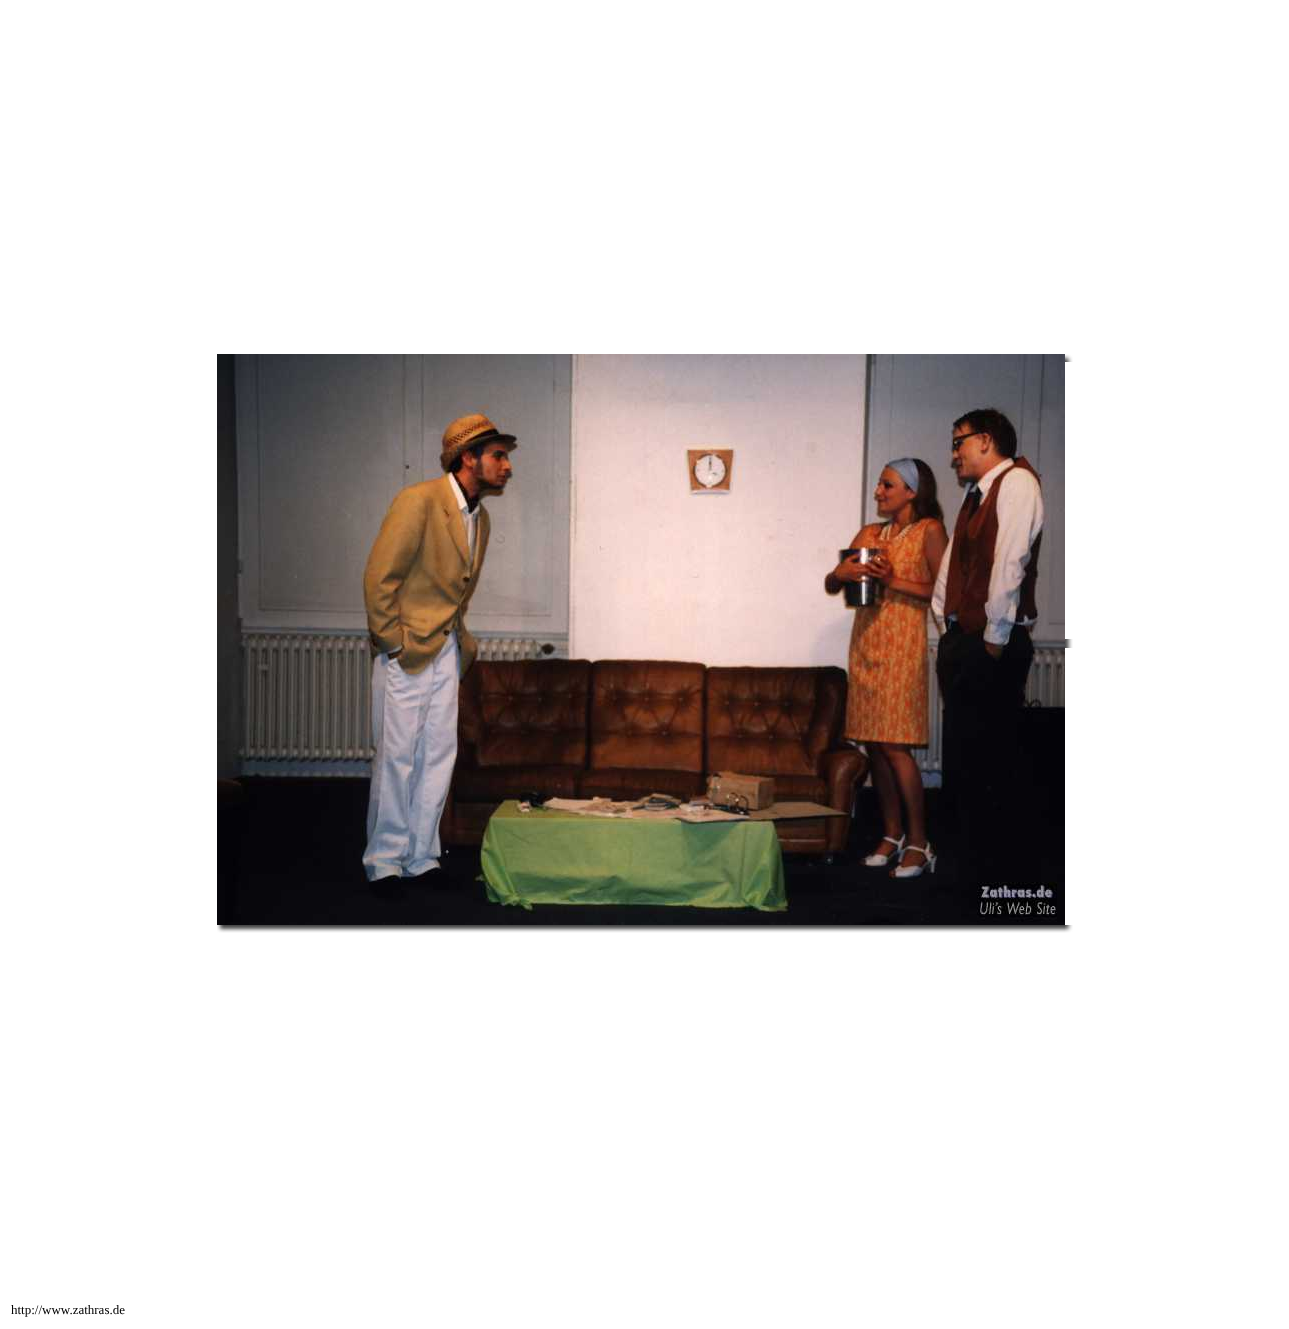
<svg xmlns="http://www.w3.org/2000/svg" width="1289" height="1329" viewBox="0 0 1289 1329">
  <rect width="100%" height="100%" fill="rgb(255,255,255)"/>
  <image x="217" y="354" width="848" height="571" href="pic1.png"/>
  <image x="1065" y="354" width="8" height="8" href="pic2.png"/>
  <image x="1065" y="639" width="8" height="9" href="pic3.png"/>
  <image x="217" y="925" width="8" height="8" href="pic4.png"/>
  <image x="225" y="925" width="840" height="8" href="pic5.png"/>
  <image x="1065" y="925" width="8" height="8" href="pic6.png"/>
  <text x="11" y="1314" font-family="Liberation Serif" font-size="13" fill="rgb(0,0,0)">http://www.zathras.de</text>
</svg>
